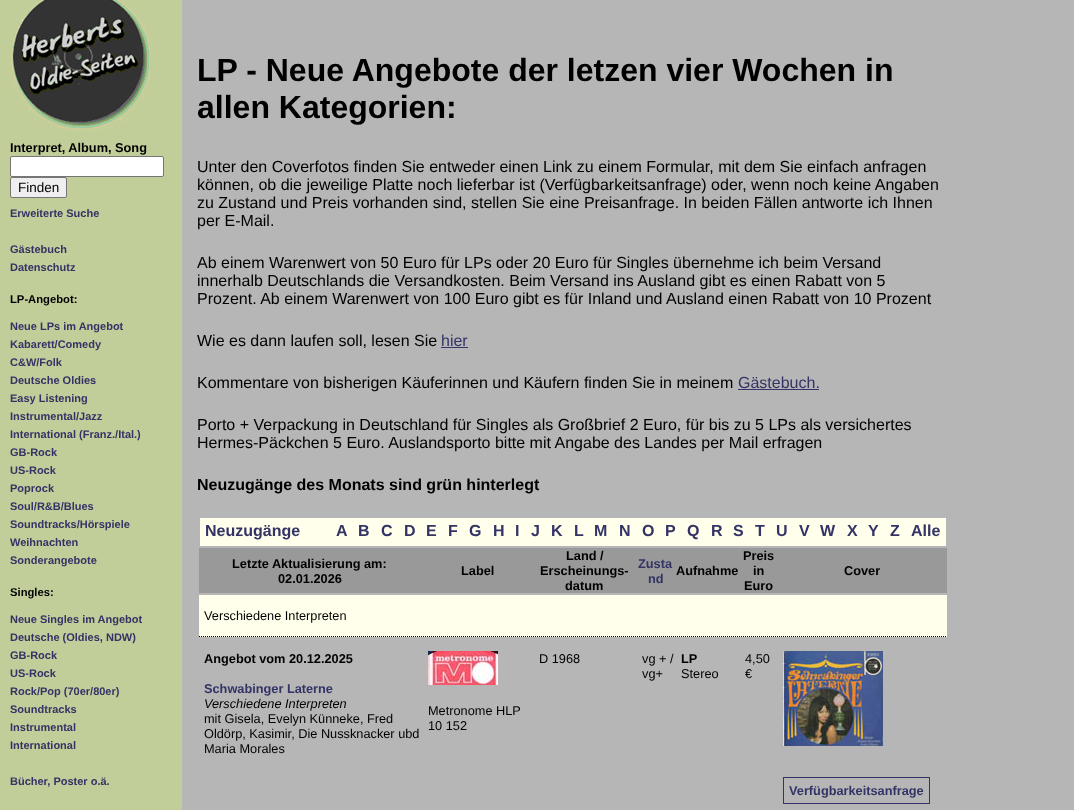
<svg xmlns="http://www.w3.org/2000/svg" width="1074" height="810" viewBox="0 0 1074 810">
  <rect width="100%" height="100%" fill="rgb(182,182,182)"/>
  <rect x="0" y="0" width="182" height="810" fill="rgb(194,206,153)"/>
  <image x="10" y="0" width="140" height="132" href="pic1.png"/>
  <text x="10" y="152" font-family="Liberation Sans" font-size="12.75" font-weight="bold" fill="rgb(0,0,0)">Interpret, Album, Song</text>
  <rect x="10.5" y="156.5" width="153" height="20" rx="1.5" fill="rgb(255,255,255)" stroke="rgb(118,118,118)"/>
  <rect x="10.5" y="177.5" width="56" height="20" rx="1.5" fill="rgb(239,239,239)" stroke="rgb(118,118,118)"/>
  <text x="18" y="192" font-family="Liberation Sans" font-size="13.5" fill="rgb(0,0,0)">Finden</text>
  <g font-family="Liberation Sans" font-size="11" font-weight="bold" fill="rgb(51,51,102)">
    <text x="10" y="217">Erweiterte Suche</text>
    <text>
      <tspan x="10" y="253">Gästebuch</tspan>
      <tspan x="10" y="271">Datenschutz</tspan>
    </text>
  </g>
  <text x="10" y="303" font-family="Liberation Sans" font-size="11.25" font-weight="bold" fill="rgb(0,0,0)">LP-Angebot:</text>
  <g font-family="Liberation Sans" font-size="11" font-weight="bold" fill="rgb(51,51,102)">
    <text>
      <tspan x="10" y="330">Neue LPs im Angebot</tspan>
      <tspan x="10" y="348">Kabarett/Comedy</tspan>
      <tspan x="10" y="366">C&amp;W/Folk</tspan>
      <tspan x="10" y="384">Deutsche Oldies</tspan>
      <tspan x="10" y="402">Easy Listening</tspan>
      <tspan x="10" y="420">Instrumental/Jazz</tspan>
      <tspan x="10" y="438">International (Franz./Ital.)</tspan>
      <tspan x="10" y="456">GB-Rock</tspan>
      <tspan x="10" y="474">US-Rock</tspan>
      <tspan x="10" y="492">Poprock</tspan>
      <tspan x="10" y="510">Soul/R&amp;B/Blues</tspan>
      <tspan x="10" y="528">Soundtracks/Hörspiele</tspan>
      <tspan x="10" y="546">Weihnachten</tspan>
      <tspan x="10" y="564">Sonderangebote</tspan>
    </text>
  </g>
  <text x="10" y="596" font-family="Liberation Sans" font-size="11.25" font-weight="bold" fill="rgb(0,0,0)">Singles:</text>
  <g font-family="Liberation Sans" font-size="11" font-weight="bold" fill="rgb(51,51,102)">
    <text>
      <tspan x="10" y="623">Neue Singles im Angebot</tspan>
      <tspan x="10" y="641">Deutsche (Oldies, NDW)</tspan>
      <tspan x="10" y="659">GB-Rock</tspan>
      <tspan x="10" y="677">US-Rock</tspan>
      <tspan x="10" y="695">Rock/Pop (70er/80er)</tspan>
      <tspan x="10" y="713">Soundtracks</tspan>
      <tspan x="10" y="731">Instrumental</tspan>
      <tspan x="10" y="749">International</tspan>
    </text>
    <text x="10" y="785">Bücher, Poster o.ä.</text>
  </g>
  <g font-family="Liberation Sans" font-size="32" font-weight="bold" fill="rgb(0,0,0)">
    <text>
      <tspan x="197" y="81">LP - Neue Angebote der letzen vier Wochen in</tspan>
      <tspan x="197" y="118">allen Kategorien:</tspan>
    </text>
  </g>
  <g font-family="Liberation Sans" font-size="16" fill="rgb(0,0,0)">
    <text>
      <tspan x="197" y="172">Unter den Coverfotos finden Sie entweder einen Link zu einem Formular, mit dem Sie einfach anfragen</tspan>
      <tspan x="197" y="190">können, ob die jeweilige Platte noch lieferbar ist (Verfügbarkeitsanfrage) oder, wenn noch keine Angaben</tspan>
      <tspan x="197" y="208">zu Zustand und Preis vorhanden sind, stellen Sie eine Preisanfrage. In beiden Fällen antworte ich Ihnen</tspan>
      <tspan x="197" y="226">per E-Mail.</tspan>
    </text>
    <text>
      <tspan x="197" y="268">Ab einem Warenwert von 50 Euro für LPs oder 20 Euro für Singles übernehme ich beim Versand</tspan>
      <tspan x="197" y="286">innerhalb Deutschlands die Versandkosten. Beim Versand ins Ausland gibt es einen Rabatt von 5</tspan>
      <tspan x="197" y="304">Prozent. Ab einem Warenwert von 100 Euro gibt es für Inland und Ausland einen Rabatt von 10 Prozent</tspan>
    </text>
    <text x="197" y="346">Wie es dann laufen soll, lesen Sie</text>
  </g>
  <text x="441" y="346" font-family="Liberation Sans" font-size="16" fill="rgb(51,51,102)">hier</text>
  <rect x="441" y="347" width="27" height="1" fill="rgb(51,51,102)"/>
  <text x="197" y="388" font-family="Liberation Sans" font-size="16" fill="rgb(0,0,0)">Kommentare von bisherigen Käuferinnen und Käufern finden Sie in meinem</text>
  <text x="738" y="388" font-family="Liberation Sans" font-size="16" fill="rgb(51,51,102)">Gästebuch.</text>
  <rect x="738" y="389" width="81" height="1" fill="rgb(51,51,102)"/>
  <g font-family="Liberation Sans" font-size="16" fill="rgb(0,0,0)">
    <text>
      <tspan x="197" y="430">Porto + Verpackung in Deutschland für Singles als Großbrief 2 Euro, für bis zu 5 LPs als versichertes</tspan>
      <tspan x="197" y="448">Hermes-Päckchen 5 Euro. Auslandsporto bitte mit Angabe des Landes per Mail erfragen</tspan>
    </text>
  </g>
  <text x="197" y="490" font-family="Liberation Sans" font-size="16" font-weight="bold" fill="rgb(0,0,0)">Neuzugänge des Monats sind grün hinterlegt</text>
  <rect x="200" y="518" width="746" height="28" fill="rgb(255,255,235)"/>
  <g font-family="Liberation Sans" font-size="16" font-weight="bold" fill="rgb(51,51,102)">
    <text x="205" y="536">Neuzugänge</text>
    <text x="336" y="536">A</text>
    <text x="358" y="536">B</text>
    <text x="381" y="536">C</text>
    <text x="404" y="536">D</text>
    <text x="426" y="536">E</text>
    <text x="448" y="536">F</text>
    <text x="469" y="536">G</text>
    <text x="493" y="536">H</text>
    <text x="515" y="536">I</text>
    <text x="531" y="536">J</text>
    <text x="551" y="536">K</text>
    <text x="574" y="536">L</text>
    <text x="594" y="536">M</text>
    <text x="619" y="536">N</text>
    <text x="642" y="536">O</text>
    <text x="665" y="536">P</text>
    <text x="687" y="536">Q</text>
    <text x="711" y="536">R</text>
    <text x="733" y="536">S</text>
    <text x="755" y="536">T</text>
    <text x="776" y="536">U</text>
    <text x="799" y="536">V</text>
    <text x="820" y="536">W</text>
    <text x="847" y="536">X</text>
    <text x="868" y="536">Y</text>
    <text x="890" y="536">Z</text>
    <text x="911" y="536">Alle</text>
  </g>
  <rect x="199" y="548" width="748" height="45" fill="rgb(153,153,153)"/>
  <g font-family="Liberation Sans" font-size="12.75" font-weight="bold" fill="rgb(0,0,0)">
    <text x="232" y="568">Letzte Aktualisierung am:</text>
    <text x="278" y="583">02.01.2026</text>
    <text x="461" y="575">Label</text>
    <text x="566" y="560">Land /</text>
    <text x="540" y="575">Erscheinungs-</text>
    <text x="565" y="590">datum</text>
  </g>
  <g font-family="Liberation Sans" font-size="12.75" font-weight="bold" fill="rgb(51,51,102)">
    <text x="638" y="568">Zusta</text>
    <text x="648" y="583">nd</text>
  </g>
  <g font-family="Liberation Sans" font-size="12.75" font-weight="bold" fill="rgb(0,0,0)">
    <text x="676" y="575">Aufnahme</text>
    <text x="743" y="560">Preis</text>
    <text x="753" y="575">in</text>
    <text x="744" y="590">Euro</text>
    <text x="844" y="575">Cover</text>
  </g>
  <rect x="199" y="595" width="748" height="42" fill="rgb(255,255,235)"/>
  <path d="M199 636.5H947" fill="none" stroke="rgb(0,0,0)" stroke-dasharray="1 1"/>
  <text x="204" y="620" font-family="Liberation Sans" font-size="12.75" fill="rgb(0,0,0)">Verschiedene Interpreten</text>
  <text x="204" y="663" font-family="Liberation Sans" font-size="12.75" font-weight="bold" fill="rgb(0,0,0)">Angebot vom 20.12.2025</text>
  <text x="204" y="693" font-family="Liberation Sans" font-size="12.75" font-weight="bold" fill="rgb(51,51,102)">Schwabinger Laterne</text>
  <text x="204" y="708" font-family="Liberation Sans" font-size="12.75" font-style="italic" fill="rgb(0,0,0)">Verschiedene Interpreten</text>
  <g font-family="Liberation Sans" font-size="12.75" fill="rgb(0,0,0)">
    <text>
      <tspan x="204" y="723">mit Gisela, Evelyn Künneke, Fred</tspan>
      <tspan x="204" y="738">Oldörp, Kasimir, Die Nussknacker ubd</tspan>
      <tspan x="204" y="753">Maria Morales</tspan>
    </text>
    <text x="539" y="663">D 1968</text>
    <text>
      <tspan x="642" y="663">vg + /</tspan>
      <tspan x="642" y="678">vg+</tspan>
    </text>
  </g>
  <text x="681" y="663" font-family="Liberation Sans" font-size="12.75" font-weight="bold" fill="rgb(0,0,0)">LP</text>
  <g font-family="Liberation Sans" font-size="12.75" fill="rgb(0,0,0)">
    <text x="681" y="678">Stereo</text>
    <text>
      <tspan x="745" y="663">4,50</tspan>
      <tspan x="745" y="678">€</tspan>
    </text>
  </g>
  <image x="428" y="651" width="70" height="34" href="pic2.png"/>
  <g font-family="Liberation Sans" font-size="12.75" fill="rgb(0,0,0)">
    <text>
      <tspan x="428" y="715">Metronome HLP</tspan>
      <tspan x="428" y="730">10 152</tspan>
    </text>
  </g>
  <image x="783" y="651" width="100" height="95" href="pic3.png"/>
  <rect x="783.5" y="777.5" width="146" height="26" fill="none" stroke="rgb(51,51,102)"/>
  <text x="789" y="795" font-family="Liberation Sans" font-size="12.75" font-weight="bold" fill="rgb(51,51,102)">Verfügbarkeitsanfrage</text>
</svg>
